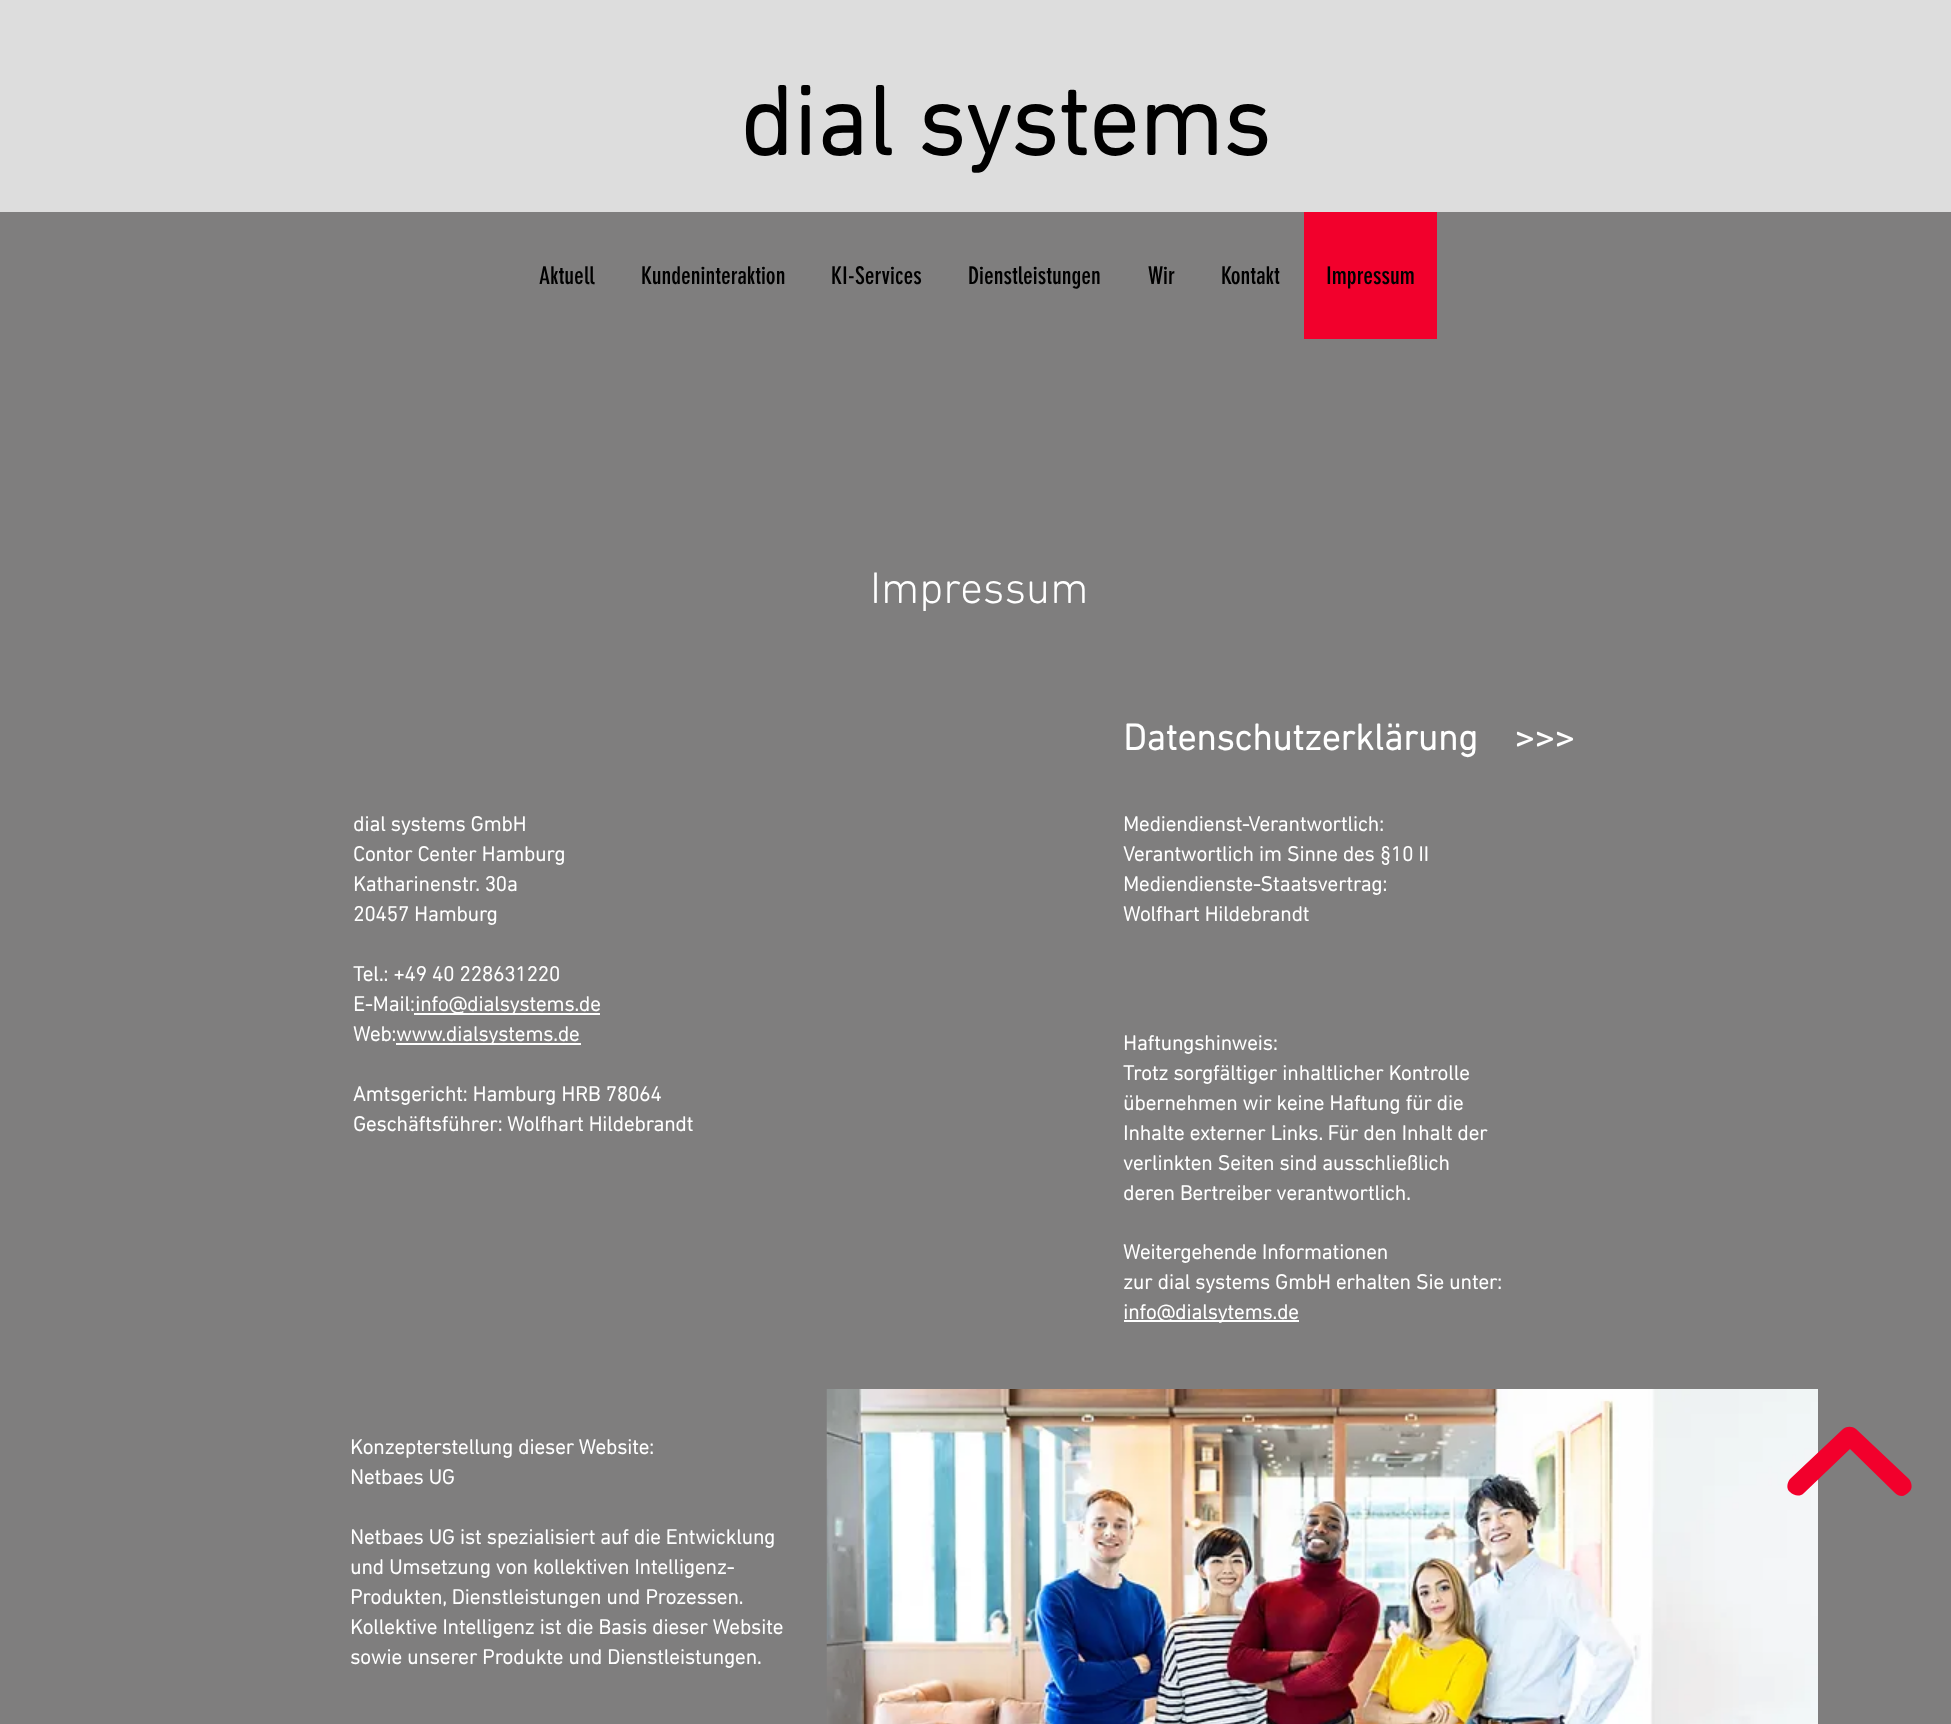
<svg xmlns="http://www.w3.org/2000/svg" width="1951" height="1724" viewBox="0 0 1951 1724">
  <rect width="100%" height="100%" fill="rgb(221,221,221)"/>
  <text x="740" y="155" font-family="'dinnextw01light'" font-size="99" font-weight="bold" fill="rgb(0,0,0)">dial systems</text>
  <rect x="0" y="212" width="1951" height="1512" fill="rgb(127,126,126)"/>
  <g font-family="'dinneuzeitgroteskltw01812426'" font-size="24" fill="rgb(0,0,0)">
    <text x="539" y="284">Aktuell</text>
    <text x="641" y="284">Kundeninteraktion</text>
    <text x="831" y="284">KI-Services</text>
    <text x="968" y="284">Dienstleistungen</text>
    <text x="1148" y="284">Wir</text>
    <text x="1221" y="284">Kontakt</text>
  </g>
  <rect x="1304" y="212" width="133" height="127" fill="rgb(242,0,44)"/>
  <text x="1326" y="284" font-family="'dinneuzeitgroteskltw01812426'" font-size="24" fill="rgb(0,0,0)">Impressum</text>
  <text x="870" y="603" font-family="'dinnextw01light'" font-size="45" font-weight="300" fill="rgb(255,255,255)">Impressum</text>
  <text x="1123" y="750" font-family="'dinnextw01light'" font-size="37.5" font-weight="bold" fill="rgb(255,255,255)" xml:space="preserve">Datenschutzerklärung    &gt;&gt;&gt;</text>
  <g font-family="'dinnextw01light'" font-size="21" font-weight="bold" fill="rgb(255,255,255)">
    <text>
      <tspan x="353" y="831">dial systems GmbH</tspan>
      <tspan x="353" y="861">Contor Center Hamburg</tspan>
      <tspan x="353" y="891">Katharinenstr. 30a</tspan>
      <tspan x="353" y="921">20457 Hamburg</tspan>
    </text>
    <text>
      <tspan x="353" y="981">Tel.: +49 40 228631220</tspan>
      <tspan x="353" y="1011">E-Mail:</tspan>
    </text>
  </g>
  <rect x="414" y="1013" width="186" height="2" fill="rgb(255,255,255)"/>
  <g font-family="'dinnextw01light'" font-size="21" font-weight="bold" fill="rgb(255,255,255)">
    <text x="415" y="1011">info@dialsystems.de</text>
    <text x="353" y="1041">Web:</text>
  </g>
  <rect x="396" y="1043" width="185" height="2" fill="rgb(255,255,255)"/>
  <g font-family="'dinnextw01light'" font-size="21" font-weight="bold" fill="rgb(255,255,255)">
    <text x="396" y="1041">www.dialsystems.de</text>
    <text>
      <tspan x="353" y="1101">Amtsgericht: Hamburg HRB 78064</tspan>
      <tspan x="353" y="1131">Geschäftsführer: Wolfhart Hildebrandt</tspan>
    </text>
    <text>
      <tspan x="1123" y="831">Mediendienst-Verantwortlich:</tspan>
      <tspan x="1123" y="861">Verantwortlich im Sinne des §10 II</tspan>
      <tspan x="1123" y="891">Mediendienste-Staatsvertrag:</tspan>
      <tspan x="1123" y="921">Wolfhart Hildebrandt</tspan>
    </text>
    <text>
      <tspan x="1123" y="1050">Haftungshinweis:</tspan>
      <tspan x="1123" y="1080">Trotz sorgfältiger inhaltlicher Kontrolle</tspan>
      <tspan x="1123" y="1110">übernehmen wir keine Haftung für die</tspan>
      <tspan x="1123" y="1140">Inhalte externer Links. Für den Inhalt der</tspan>
      <tspan x="1123" y="1170">verlinkten Seiten sind ausschließlich</tspan>
      <tspan x="1123" y="1200">deren Bertreiber verantwortlich.</tspan>
    </text>
    <text>
      <tspan x="1123" y="1259">Weitergehende Informationen</tspan>
      <tspan x="1123" y="1289">zur dial systems GmbH erhalten Sie unter:</tspan>
    </text>
  </g>
  <rect x="1124" y="1320" width="175" height="2" fill="rgb(255,255,255)"/>
  <g font-family="'dinnextw01light'" font-size="21" font-weight="bold" fill="rgb(255,255,255)">
    <text x="1123" y="1319">info@dialsytems.de</text>
    <text>
      <tspan x="350" y="1454">Konzepterstellung dieser Website:</tspan>
      <tspan x="350" y="1484">Netbaes UG</tspan>
    </text>
    <text>
      <tspan x="350" y="1544">Netbaes UG ist spezialisiert auf die Entwicklung</tspan>
      <tspan x="350" y="1574">und Umsetzung von kollektiven Intelligenz-</tspan>
      <tspan x="350" y="1604">Produkten, Dienstleistungen und Prozessen.</tspan>
      <tspan x="350" y="1634">Kollektive Intelligenz ist die Basis dieser Website</tspan>
      <tspan x="350" y="1664">sowie unserer Produkte und Dienstleistungen.</tspan>
    </text>
  </g>
  <image x="826" y="1389" width="992" height="335" href="pic1.png"/>
  <path d="M1902 1496C1899 1496 1897 1495 1895 1493L1850 1449L1804 1493C1800 1497 1794 1496 1790 1492C1786 1489 1787 1483 1790 1479L1843 1429C1847 1426 1852 1426 1856 1429L1909 1479C1912 1483 1913 1489 1909 1492C1907 1494 1904 1496 1902 1496Z" fill="rgb(242,0,44)"/>
</svg>
